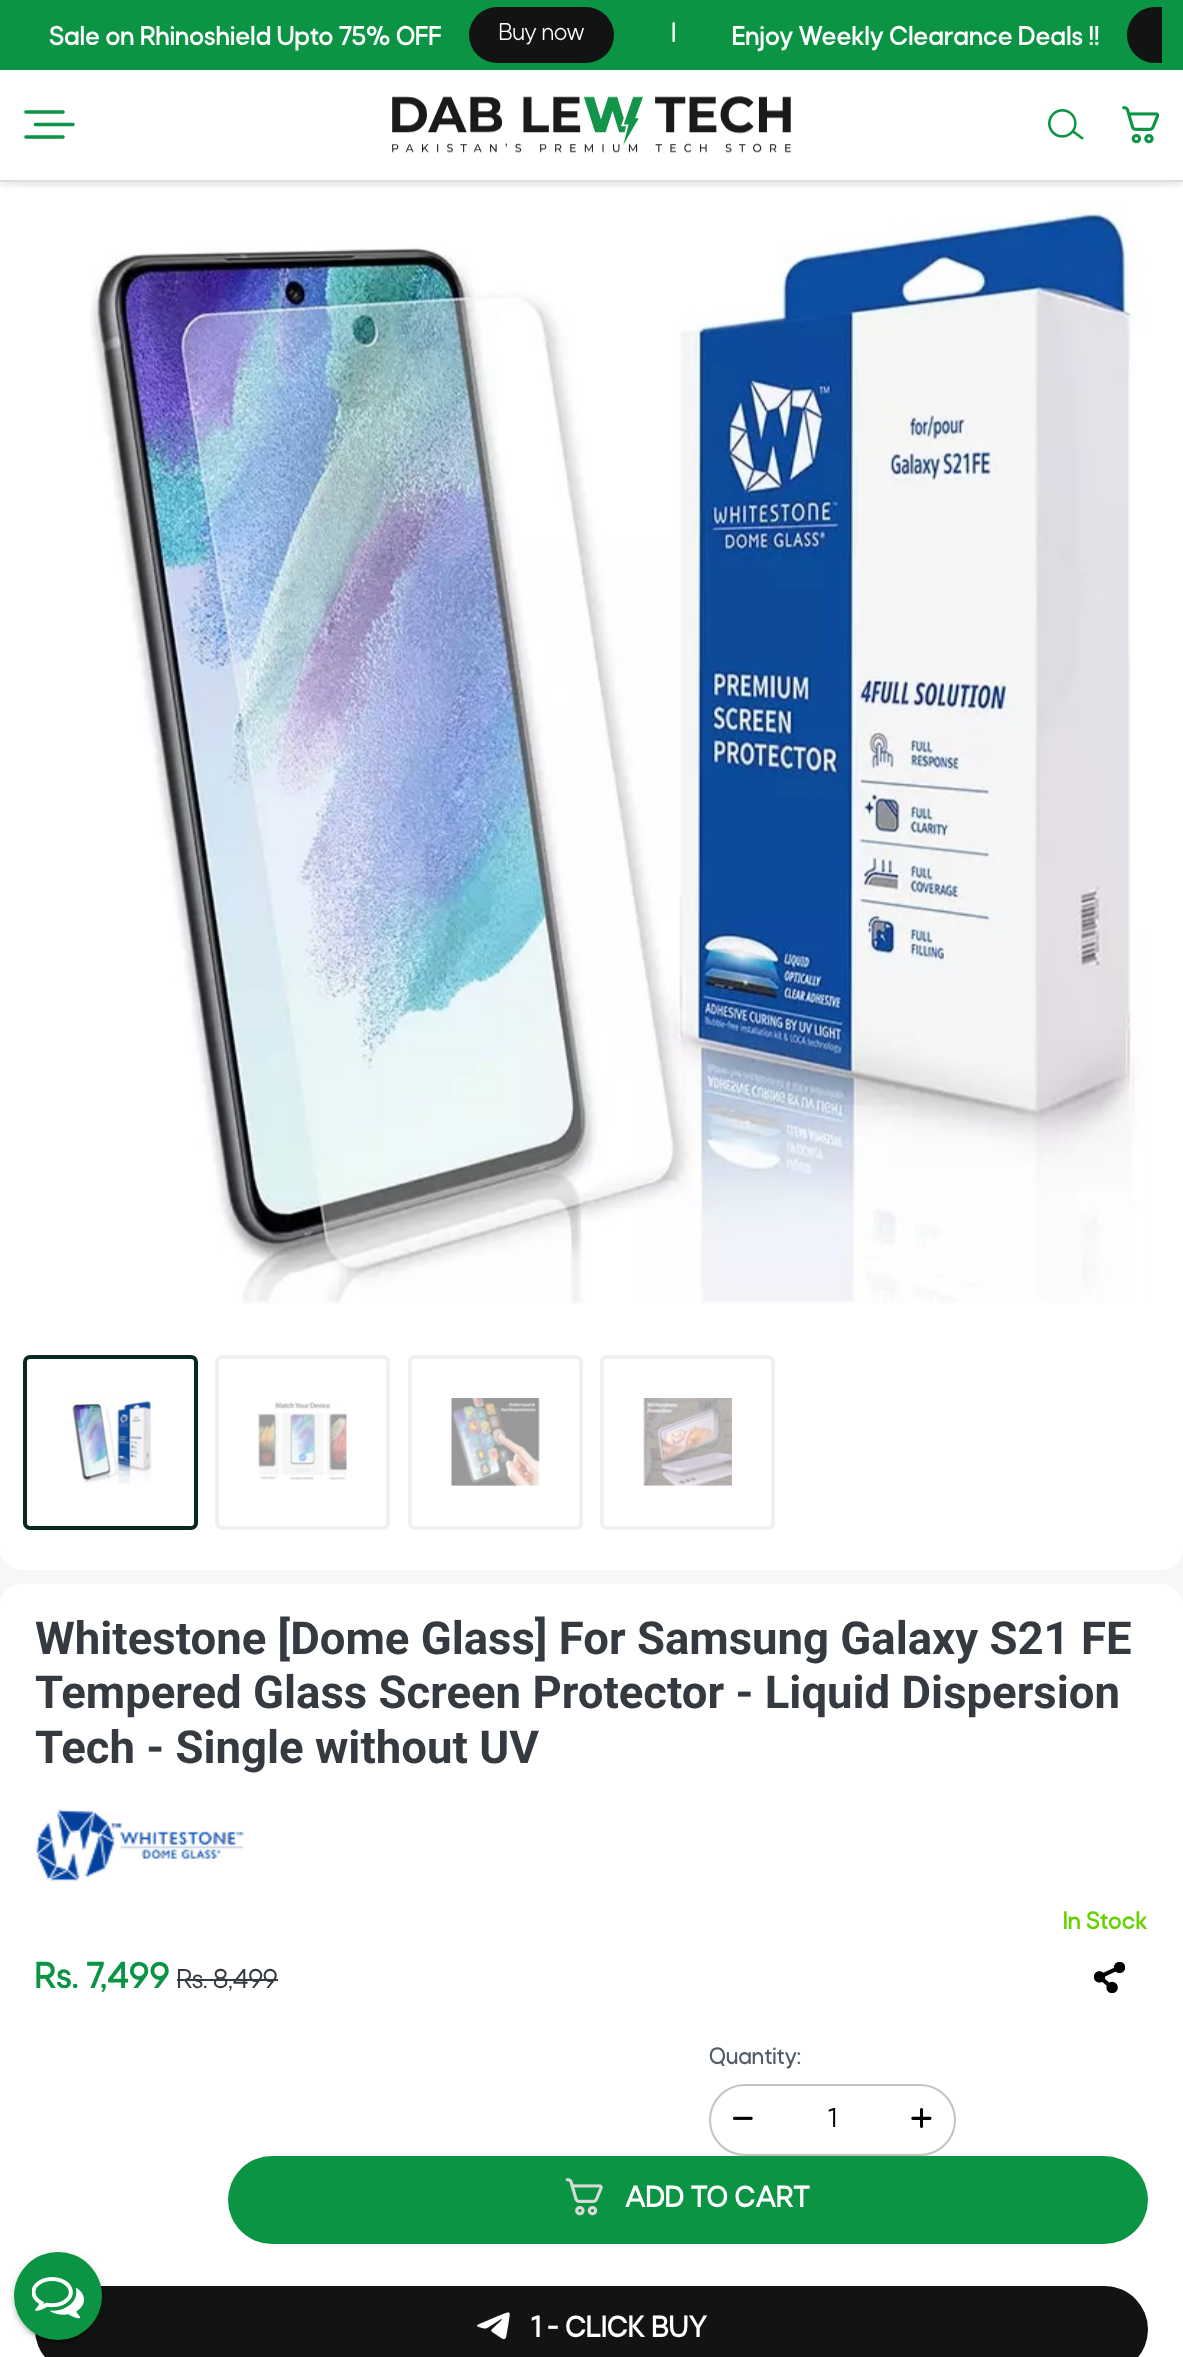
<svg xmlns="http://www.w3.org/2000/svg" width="1183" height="2357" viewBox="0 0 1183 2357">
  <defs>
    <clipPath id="clip1"><rect x="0" y="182" width="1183" height="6"/></clipPath>
  </defs>
  <rect width="100%" height="100%" fill="rgb(247,247,250)"/>
  <rect x="0" y="159" width="1183" height="1411" rx="21" fill="rgb(255,255,255)"/>
  <rect x="16" y="26" width="1151" height="151" fill="rgba(11,148,68,0.13)" filter="blur(7px)"/>
  <rect x="0" y="70" width="1183" height="110" fill="rgb(255,255,255)"/>
  <rect x="0" y="0" width="1183" height="70" fill="rgb(11,148,68)"/>
  <text x="49" y="45" font-family="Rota" font-size="28" font-weight="bold" fill="rgb(255,255,255)">Sale on Rhinoshield Upto 75% OFF</text>
  <g clip-path="url(#clip1)">
    <rect x="0" y="74" width="1183" height="112" fill="rgba(0,0,0,0.08)" filter="blur(3.5px)"/>
  </g>
  <rect x="469" y="7" width="145" height="56" rx="28" fill="rgb(18,20,19)"/>
  <text x="499" y="40" font-family="Rota" font-size="25" fill="rgb(255,255,255)">Buy now</text>
  <text x="671" y="39" font-family="Rota" font-size="23" font-weight="bold" fill="rgb(255,255,255)">|</text>
  <text x="732" y="45" font-family="Rota" font-size="28" font-weight="bold" fill="rgb(255,255,255)">Enjoy Weekly Clearance Deals !!</text>
  <path d="M1155 7H1162V63H1155C1139.5 63 1127 50.5 1127 35C1127 19.5 1139.5 7 1155 7Z" fill="rgb(18,20,19)"/>
  <rect x="0" y="180" width="1183" height="2" fill="rgb(218,222,227)"/>
  <path d="M26 112H63M35.5 124.5H73M26 137H63" fill="none" stroke="rgb(11,148,68)" stroke-width="3.6" stroke-linecap="round"/>
  <image x="392" y="96" width="399" height="57" href="pic1.png"/>
  <image x="1048" y="109" width="36" height="31" href="pic2.png"/>
  <image x="1122" y="106" width="38" height="38" href="pic3.png"/>
  <image x="90" y="200" width="1056" height="1104" href="pic4.png"/>
  <rect x="25" y="1357" width="171" height="171" rx="5" fill="none" stroke="rgb(8,40,35)" stroke-width="4"/>
  <image x="69" y="1398" width="83" height="86" href="pic5.png"/>
  <rect x="217" y="1357" width="171" height="171" rx="5" fill="none" stroke="rgb(240,240,240)" stroke-width="4"/>
  <image x="258" y="1402" width="89" height="78" href="pic6.png"/>
  <rect x="410" y="1357" width="171" height="171" rx="5" fill="none" stroke="rgb(240,240,240)" stroke-width="4"/>
  <image x="451" y="1398" width="89" height="88" href="pic7.png"/>
  <rect x="602" y="1357" width="171" height="171" rx="5" fill="none" stroke="rgb(240,240,240)" stroke-width="4"/>
  <image x="643" y="1398" width="89" height="88" href="pic8.png"/>
  <rect x="0" y="1584" width="1183" height="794" rx="21" fill="rgb(255,255,255)"/>
  <g font-family="Roboto" font-size="45.5" font-weight="bold" fill="rgb(52,58,64)">
    <text>
      <tspan x="35" y="1654">Whitestone [Dome Glass] For Samsung Galaxy S21 FE</tspan>
      <tspan x="35" y="1708">Tempered Glass Screen Protector - Liquid Dispersion</tspan>
      <tspan x="35" y="1763">Tech - Single without UV</tspan>
    </text>
  </g>
  <image x="36" y="1809" width="208" height="73" href="pic9.png"/>
  <text x="1063" y="1929" font-family="Rota" font-size="26" font-weight="bold" fill="rgb(102,210,3)">In Stock</text>
  <text x="35" y="1988" font-family="Rota" font-size="38.5" font-weight="bold" fill="rgb(11,148,68)">Rs. 7,499</text>
  <text x="177" y="1988" font-family="Rota" font-size="28" font-weight="500" fill="rgb(52,58,64)">Rs. 8,499</text>
  <rect x="177" y="1979" width="101" height="2" fill="rgb(52,58,64)"/>
  <image x="1094" y="1962" width="31" height="31" href="pic10.png"/>
  <text x="709" y="2064" font-family="Rota" font-size="24.5" font-weight="600" fill="rgb(80,93,105)">Quantity:</text>
  <rect x="710" y="2085" width="245" height="70" rx="35" fill="none" stroke="rgb(195,195,195)" stroke-width="2"/>
  <image x="732" y="2116" width="21" height="4" href="pic11.png"/>
  <text x="828" y="2127" font-family="Rota" font-size="28" font-weight="500" fill="rgb(0,0,0)">1</text>
  <image x="911" y="2108" width="21" height="20" href="pic12.png"/>
  <rect x="228" y="2156" width="920" height="88" rx="44" fill="rgb(11,148,68)"/>
  <image x="565" y="2178" width="38" height="38" href="pic13.png"/>
  <text x="625" y="2207" font-family="Rota" font-size="31.5" font-weight="bold" fill="rgb(255,255,255)">ADD TO CART</text>
  <rect x="35" y="2286" width="1113" height="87" rx="43.5" fill="rgb(18,20,19)"/>
  <image x="477" y="2312" width="33" height="28" href="pic14.png"/>
  <text x="531" y="2337" font-family="Rota" font-size="31.5" font-weight="bold" fill="rgb(255,255,255)">1 - CLICK BUY</text>
  <rect x="18" y="2261" width="80" height="81" rx="40" fill="rgba(0,0,0,0.2)" filter="blur(1px)"/>
  <rect x="14" y="2254" width="88" height="88" rx="44" fill="rgba(0,0,0,0.12)" filter="blur(4.5px)"/>
  <rect x="14" y="2256" width="88" height="87" rx="43.5" fill="rgba(0,0,0,0.14)" filter="blur(2px)"/>
  <circle cx="58" cy="2296" r="44" fill="rgb(11,148,68)"/>
  <image x="32" y="2277" width="52" height="42" href="pic15.png"/>
</svg>
